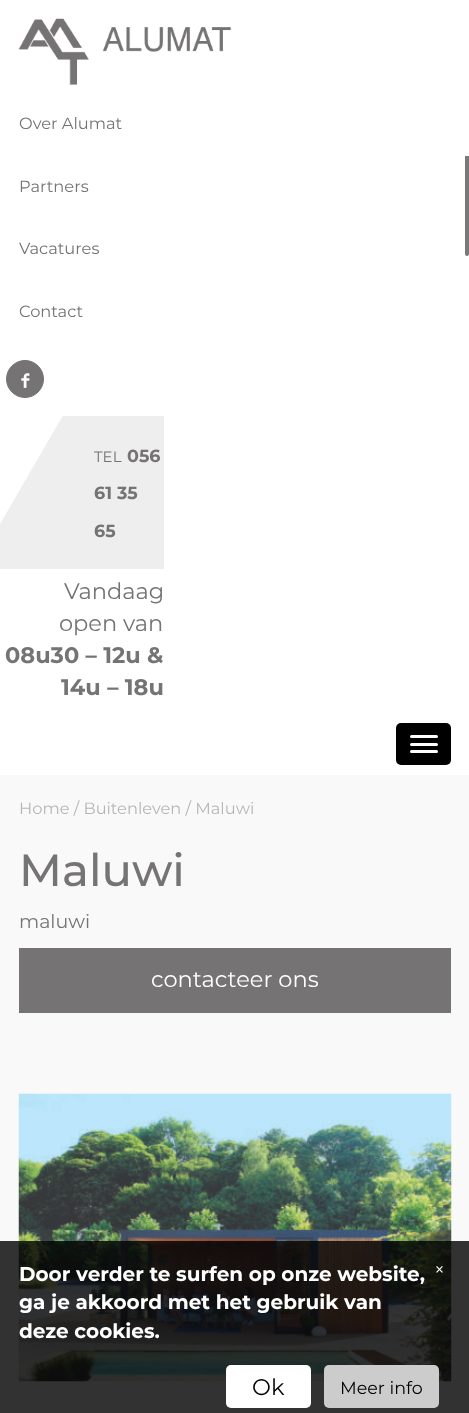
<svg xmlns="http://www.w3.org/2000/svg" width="469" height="1413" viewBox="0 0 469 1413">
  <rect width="100%" height="100%" fill="rgb(249,249,249)"/>
  <rect x="0" y="156" width="469" height="619" fill="rgb(255,255,255)"/>
  <rect x="465" y="1" width="4" height="255" rx="2" fill="rgba(66,66,66,0.71)"/>
  <rect x="464.5" y="0.5" width="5" height="257" rx="2.5" fill="none" stroke="rgba(255,255,255,0.71)"/>
  <rect x="0" y="0" width="469" height="156" fill="rgb(255,255,255)"/>
  <image x="18" y="18" width="214" height="67" href="pic1.png"/>
  <g font-family="Montserrat" font-size="16.25" fill="rgb(117,115,115)">
    <text x="19" y="129">Over Alumat</text>
    <text x="19" y="192">Partners</text>
    <text x="19" y="254">Vacatures</text>
    <text x="19" y="317">Contact</text>
  </g>
  <circle cx="25" cy="379" r="18.5" fill="rgb(117,115,115)" stroke="rgb(117,115,115)"/>
  <image x="21" y="373" width="9" height="15" href="pic2.png"/>
  <rect x="63" y="416" width="101" height="153" fill="rgb(238,238,238)"/>
  <path d="M62 417H164L76 569H-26Z" fill="rgb(238,238,238)"/>
  <text x="94" y="462" font-family="Montserrat" font-size="15" fill="rgb(117,115,115)">TEL</text>
  <g font-family="Montserrat" font-size="17.5" font-weight="bold" fill="rgb(117,115,115)">
    <text x="127" y="462">056</text>
    <text x="94" y="499">61 35</text>
    <text x="94" y="537">65</text>
  </g>
  <g font-family="Montserrat" font-size="22.5" fill="rgb(117,115,115)">
    <text x="64" y="599">Vandaag</text>
    <text x="59" y="631">open van</text>
  </g>
  <g font-family="Montserrat" font-size="22.5" font-weight="bold" fill="rgb(117,115,115)">
    <text x="5" y="663">08u30 – 12u &amp;</text>
    <text x="61" y="695">14u – 18u</text>
  </g>
  <rect x="396" y="723" width="55" height="42" rx="5" fill="rgb(0,0,0)"/>
  <rect x="410" y="735" width="28" height="3" rx="1.5" fill="rgb(255,255,255)"/>
  <rect x="410" y="743" width="28" height="3" rx="1.5" fill="rgb(255,255,255)"/>
  <rect x="410" y="750" width="28" height="3" rx="1.5" fill="rgb(255,255,255)"/>
  <text x="19" y="814" font-family="Montserrat" font-size="16.25" fill="rgb(183,182,182)">Home / Buitenleven / Maluwi</text>
  <text x="19" y="886" font-family="Montserrat" font-size="45" font-weight="500" fill="rgb(117,115,115)">Maluwi</text>
  <text x="19" y="928" font-family="Montserrat" font-size="19" fill="rgb(117,115,115)">maluwi</text>
  <rect x="19" y="948" width="432" height="65" fill="rgb(117,115,115)"/>
  <text x="151" y="987" font-family="Montserrat" font-size="22.5" fill="rgb(255,255,255)">contacteer ons</text>
  <image x="18" y="1093" width="434" height="289" href="pic3.png"/>
  <rect x="0" y="1241" width="469" height="172" fill="rgba(0,0,0,0.8)"/>
  <g font-family="Montserrat" font-size="20" font-weight="bold" fill="rgb(255,255,255)">
    <text>
      <tspan x="19" y="1281">Door verder te surfen op onze website,</tspan>
      <tspan x="19" y="1309">ga je akkoord met het gebruik van</tspan>
      <tspan x="19" y="1338">deze cookies.</tspan>
    </text>
  </g>
  <text x="434" y="1276" font-family="Montserrat" font-size="19" fill="rgb(255,255,255)">×</text>
  <rect x="226" y="1365" width="85" height="43" rx="5" fill="rgb(255,255,255)"/>
  <text x="252" y="1395" font-family="Montserrat" font-size="22.5" fill="rgb(0,0,0)">Ok</text>
  <rect x="324" y="1365" width="115" height="43" rx="5" fill="rgb(204,204,204)"/>
  <text x="340" y="1394" font-family="Montserrat" font-size="17.5" fill="rgb(0,0,0)">Meer info</text>
</svg>
